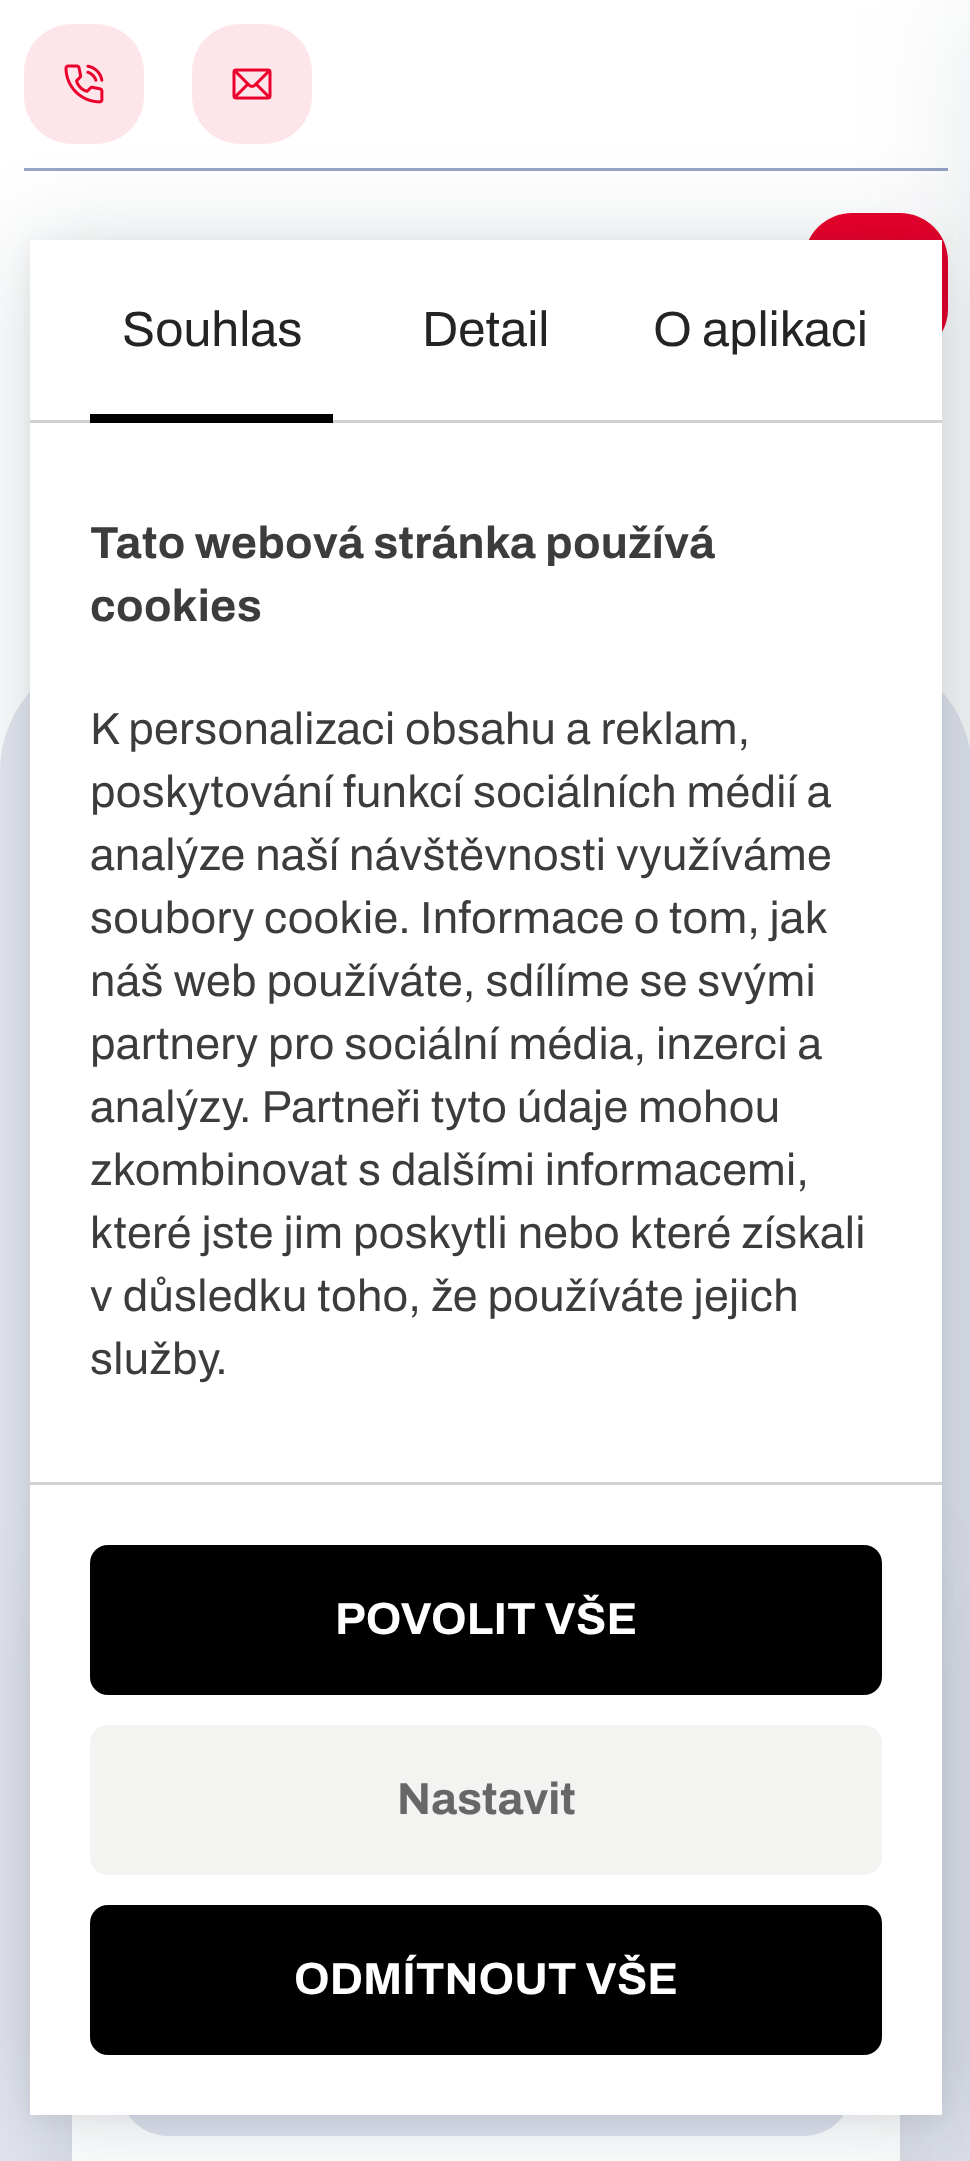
<svg xmlns="http://www.w3.org/2000/svg" width="970" height="2161" viewBox="0 0 970 2161">
  <rect width="100%" height="100%" fill="rgb(255,255,255)"/>
  <rect x="804" y="213" width="144" height="144" rx="48" fill="rgb(235,0,43)"/>
  <rect x="24" y="168" width="924" height="3" fill="rgb(153,164,199)"/>
  <rect x="0" y="651" width="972" height="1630" rx="120" fill="rgb(230,232,241)"/>
  <rect x="72" y="1551" width="828" height="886" rx="96" fill="rgba(14,22,44,0.1)" filter="blur(60px)"/>
  <rect x="72" y="2115" width="828" height="46" fill="rgb(255,255,255)"/>
  <rect x="120" y="1587" width="732" height="549" rx="48" fill="rgb(225,228,239)"/>
  <rect x="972" y="12" width="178" height="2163" fill="rgba(14,22,44,0.1)" filter="blur(60px)"/>
  <rect x="24" y="24" width="120" height="120" rx="48" fill="rgb(253,230,234)"/>
  <image x="64" y="64" width="40" height="40" href="pic1.png"/>
  <rect x="192" y="24" width="120" height="120" rx="48" fill="rgb(253,230,234)"/>
  <image x="232" y="68" width="40" height="32" href="pic2.png"/>
  <rect x="30" y="246" width="912" height="1875" fill="rgba(5,27,44,0.16)" filter="blur(48px)"/>
  <rect x="30" y="243" width="912" height="1875" fill="rgba(5,27,44,0.06)" filter="blur(9px)"/>
  <rect x="30" y="240" width="912" height="1875" fill="rgb(255,255,255)"/>
  <rect x="30" y="420" width="912" height="3" fill="rgb(208,208,208)"/>
  <text x="122" y="346" font-family="Archivo" font-size="49.5" fill="rgb(36,36,36)">Souhlas</text>
  <rect x="90" y="414" width="243" height="9" fill="rgb(0,0,0)"/>
  <g font-family="Archivo" font-size="49.5" fill="rgb(36,36,36)">
    <text x="422" y="346">Detail</text>
    <text x="653" y="346">O aplikaci</text>
  </g>
  <g font-family="Archivo" font-size="45" font-weight="bold" letter-spacing="0.3" fill="rgb(60,60,60)">
    <text>
      <tspan x="90" y="558">Tato webová stránka používá</tspan>
      <tspan x="90" y="621">cookies</tspan>
    </text>
  </g>
  <g font-family="Archivo" font-size="45" letter-spacing="0.3" fill="rgb(60,60,60)">
    <text>
      <tspan x="90" y="744">K personalizaci obsahu a reklam,</tspan>
      <tspan x="90" y="807">poskytování funkcí sociálních médií a</tspan>
      <tspan x="90" y="870">analýze naší návštěvnosti využíváme</tspan>
      <tspan x="90" y="933" word-spacing="-0.5">soubory cookie. Informace o tom, jak</tspan>
      <tspan x="90" y="996">náš web používáte, sdílíme se svými</tspan>
      <tspan x="90" y="1059">partnery pro sociální média, inzerci a</tspan>
      <tspan x="90" y="1122">analýzy. Partneři tyto údaje mohou</tspan>
      <tspan x="90" y="1185">zkombinovat s dalšími informacemi,</tspan>
      <tspan x="90" y="1248">které jste jim poskytli nebo které získali</tspan>
      <tspan x="90" y="1311">v důsledku toho, že používáte jejich</tspan>
      <tspan x="90" y="1374">služby.</tspan>
    </text>
  </g>
  <rect x="30" y="1482" width="912" height="3" fill="rgb(208,208,208)"/>
  <rect x="90" y="1545" width="792" height="150" rx="18" fill="rgb(0,0,0)"/>
  <text x="335" y="1634" font-family="Archivo" font-size="45" font-weight="bold" fill="rgb(255,255,255)">POVOLIT VŠE</text>
  <rect x="90" y="1725" width="792" height="150" rx="18" fill="rgb(243,243,242)"/>
  <text x="397" y="1814" font-family="Archivo" font-size="45" font-weight="bold" fill="rgb(103,103,103)">Nastavit</text>
  <rect x="90" y="1905" width="792" height="150" rx="18" fill="rgb(0,0,0)"/>
  <text x="294" y="1994" font-family="Archivo" font-size="45" font-weight="bold" fill="rgb(255,255,255)">ODMÍTNOUT VŠE</text>
</svg>
